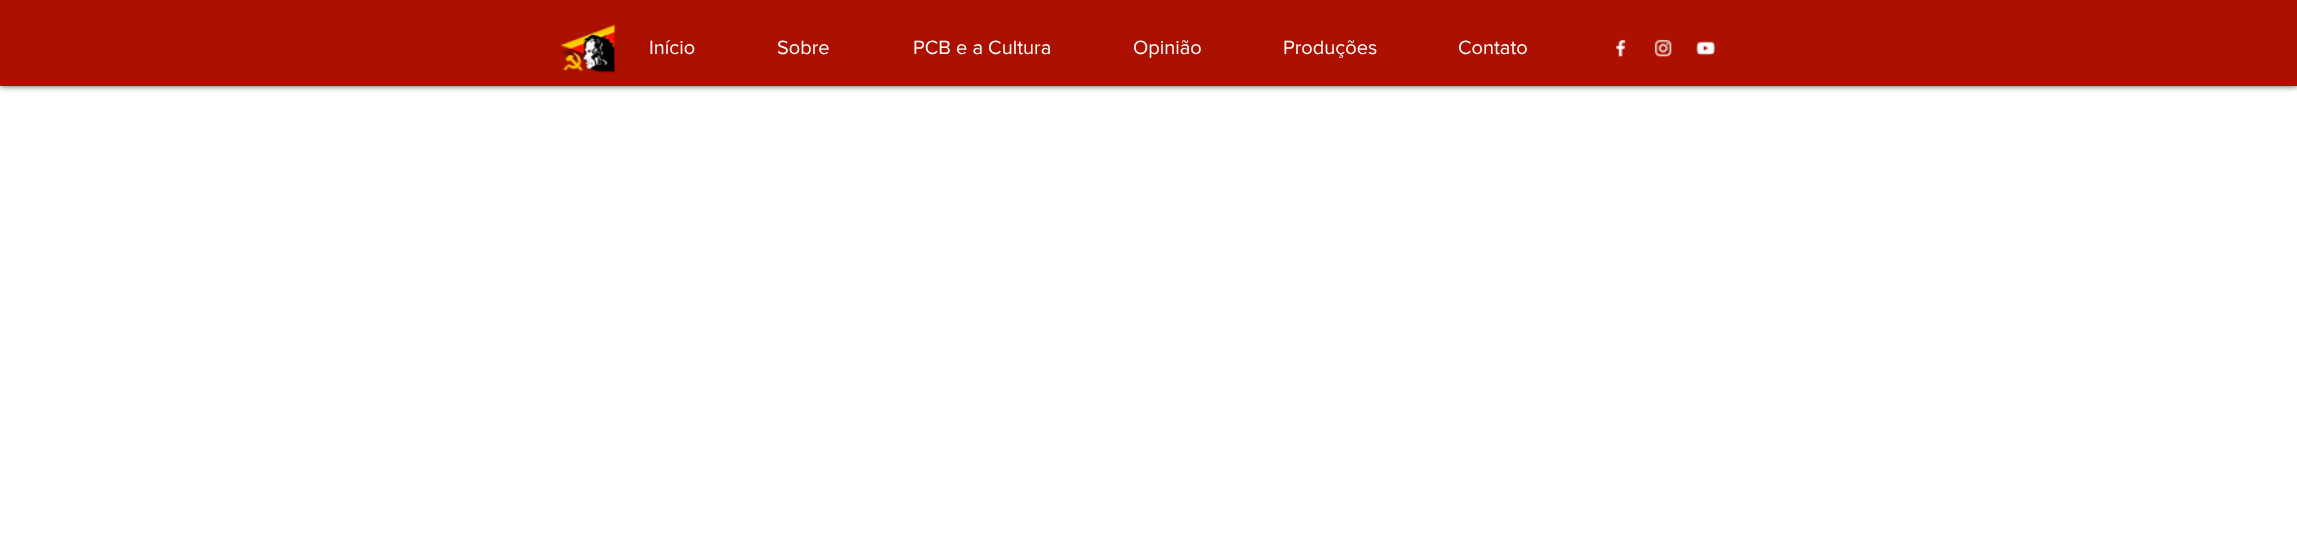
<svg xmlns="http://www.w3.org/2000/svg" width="2297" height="546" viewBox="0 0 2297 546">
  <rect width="100%" height="100%" fill="rgb(255,255,255)"/>
  <rect x="0" y="0" width="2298" height="86" fill="rgba(0,0,0,0.7)" filter="blur(3px)"/>
  <rect x="0" y="0" width="2297" height="86" fill="rgb(171,16,0)"/>
  <image x="561" y="24" width="55" height="49" href="pic1.png"/>
  <g font-family="'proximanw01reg'" font-size="20" fill="rgb(255,255,255)">
    <text x="649" y="54">Início</text>
    <text x="777" y="54">Sobre</text>
    <text x="913" y="54">PCB e a Cultura</text>
    <text x="1133" y="54">Opinião</text>
    <text x="1283" y="54">Produções</text>
    <text x="1458" y="54">Contato</text>
  </g>
  <image x="1616" y="39" width="10" height="18" href="pic2.png"/>
  <image x="1654" y="39" width="18" height="18" href="pic3.png"/>
  <image x="1696" y="41" width="20" height="15" href="pic4.png"/>
</svg>
